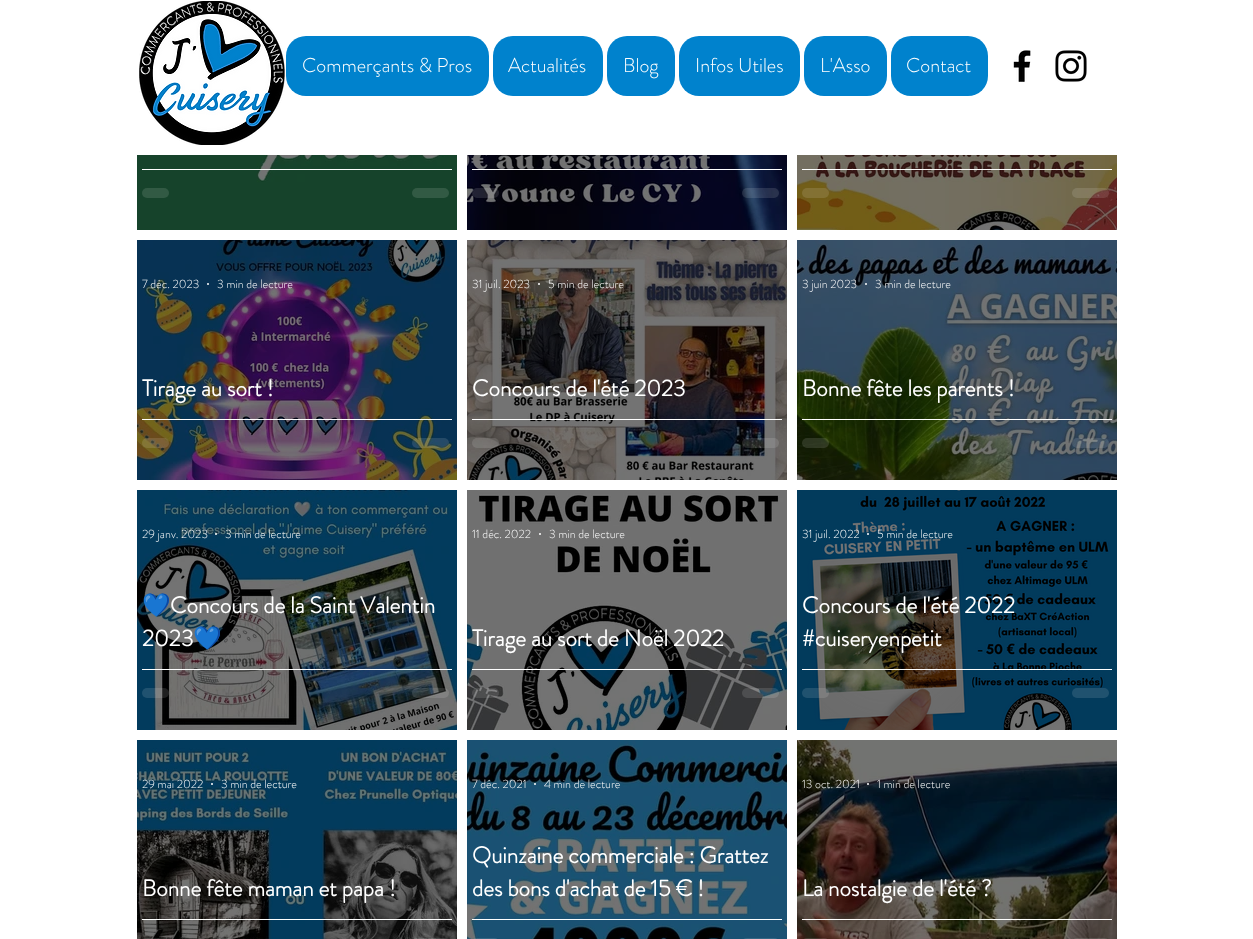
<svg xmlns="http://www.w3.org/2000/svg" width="1253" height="939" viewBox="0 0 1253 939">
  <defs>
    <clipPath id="clip1"><rect x="142" y="589" width="310" height="66"/></clipPath>
  </defs>
  <rect width="100%" height="100%" fill="rgb(255,255,255)"/>
  <image x="139" y="1" width="146" height="144" href="pic1.png"/>
  <rect x="286" y="36" width="203" height="60" rx="20" fill="rgb(0,130,205)"/>
  <text x="302" y="72" font-family="'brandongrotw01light'" font-size="20" font-weight="300" fill="rgb(255,255,255)">Commerçants &amp; Pros</text>
  <rect x="493" y="36" width="110" height="60" rx="20" fill="rgb(0,130,205)"/>
  <text x="508" y="72" font-family="'brandongrotw01light'" font-size="20" font-weight="300" fill="rgb(255,255,255)">Actualités</text>
  <rect x="607" y="36" width="68" height="60" rx="20" fill="rgb(0,130,205)"/>
  <text x="623" y="72" font-family="'brandongrotw01light'" font-size="20" font-weight="300" fill="rgb(255,255,255)">Blog</text>
  <rect x="679" y="36" width="121" height="60" rx="20" fill="rgb(0,130,205)"/>
  <text x="695" y="72" font-family="'brandongrotw01light'" font-size="20" font-weight="300" fill="rgb(255,255,255)">Infos Utiles</text>
  <rect x="804" y="36" width="83" height="60" rx="20" fill="rgb(0,130,205)"/>
  <text x="820" y="72" font-family="'brandongrotw01light'" font-size="20" font-weight="300" fill="rgb(255,255,255)">L'Asso</text>
  <rect x="891" y="36" width="97" height="60" rx="20" fill="rgb(0,130,205)"/>
  <text x="906" y="72" font-family="'brandongrotw01light'" font-size="20" font-weight="300" fill="rgb(255,255,255)">Contact</text>
  <image x="1013" y="50" width="18" height="32" href="pic2.png"/>
  <image x="1055" y="50" width="32" height="32" href="pic3.png"/>
  <image x="137" y="155" width="320" height="75" href="pic4.png"/>
  <rect x="142" y="169" width="310" height="1" fill="rgb(255,255,255)"/>
  <rect x="142" y="188" width="27" height="10" rx="5" fill="rgb(50,90,68)"/>
  <rect x="412" y="188" width="37" height="10" rx="5" fill="rgb(50,90,68)"/>
  <image x="467" y="155" width="320" height="75" href="pic5.png"/>
  <rect x="472" y="169" width="310" height="1" fill="rgb(255,255,255)"/>
  <rect x="472" y="188" width="27" height="10" rx="5" fill="rgba(255,255,255,0.12)"/>
  <rect x="742" y="188" width="37" height="10" rx="5" fill="rgba(255,255,255,0.12)"/>
  <image x="797" y="155" width="320" height="75" href="pic6.png"/>
  <rect x="802" y="169" width="310" height="1" fill="rgb(255,255,255)"/>
  <rect x="802" y="188" width="27" height="10" rx="5" fill="rgba(255,255,255,0.12)"/>
  <rect x="1072" y="188" width="37" height="10" rx="5" fill="rgba(255,255,255,0.12)"/>
  <image x="137" y="240" width="320" height="240" href="pic7.png"/>
  <text x="142" y="288" font-family="'brandongrotw01light'" font-size="12" font-weight="300" fill="rgb(255,255,255)">7 déc. 2023</text>
  <circle cx="208" cy="284" r="1" fill="rgb(255,255,255)"/>
  <text x="217" y="288" font-family="'brandongrotw01light'" font-size="12" font-weight="300" fill="rgb(255,255,255)">3 min de lecture</text>
  <text x="142" y="396" font-family="'brandongrotw01light'" font-size="23" font-weight="bold" fill="rgb(255,255,255)">Tirage au sort !</text>
  <rect x="142" y="419" width="310" height="1" fill="rgb(255,255,255)"/>
  <rect x="142" y="438" width="27" height="10" rx="5" fill="rgba(255,255,255,0.12)"/>
  <rect x="412" y="438" width="37" height="10" rx="5" fill="rgba(255,255,255,0.12)"/>
  <image x="467" y="240" width="320" height="240" href="pic8.png"/>
  <text x="472" y="288" font-family="'brandongrotw01light'" font-size="12" font-weight="300" fill="rgb(255,255,255)">31 juil. 2023</text>
  <circle cx="539" cy="284" r="1" fill="rgb(255,255,255)"/>
  <text x="548" y="288" font-family="'brandongrotw01light'" font-size="12" font-weight="300" fill="rgb(255,255,255)">5 min de lecture</text>
  <text x="472" y="396" font-family="'brandongrotw01light'" font-size="23" font-weight="bold" fill="rgb(255,255,255)">Concours de l'été 2023</text>
  <rect x="472" y="419" width="310" height="1" fill="rgb(255,255,255)"/>
  <rect x="472" y="438" width="27" height="10" rx="5" fill="rgba(255,255,255,0.12)"/>
  <rect x="742" y="438" width="37" height="10" rx="5" fill="rgba(255,255,255,0.12)"/>
  <image x="797" y="240" width="320" height="240" href="pic9.png"/>
  <text x="802" y="288" font-family="'brandongrotw01light'" font-size="12" font-weight="300" fill="rgb(255,255,255)">3 juin 2023</text>
  <circle cx="866" cy="284" r="1" fill="rgb(255,255,255)"/>
  <text x="875" y="288" font-family="'brandongrotw01light'" font-size="12" font-weight="300" fill="rgb(255,255,255)">3 min de lecture</text>
  <text x="802" y="396" font-family="'brandongrotw01light'" font-size="23" font-weight="bold" fill="rgb(255,255,255)">Bonne fête les parents !</text>
  <rect x="802" y="419" width="310" height="1" fill="rgb(255,255,255)"/>
  <rect x="802" y="438" width="27" height="10" rx="5" fill="rgba(255,255,255,0.12)"/>
  <rect x="1072" y="438" width="37" height="10" rx="5" fill="rgba(255,255,255,0.12)"/>
  <image x="137" y="490" width="320" height="240" href="pic10.png"/>
  <text x="142" y="538" font-family="'brandongrotw01light'" font-size="12" font-weight="300" fill="rgb(255,255,255)">29 janv. 2023</text>
  <circle cx="216" cy="534" r="1" fill="rgb(255,255,255)"/>
  <text x="225" y="538" font-family="'brandongrotw01light'" font-size="12" font-weight="300" fill="rgb(255,255,255)">3 min de lecture</text>
  <g clip-path="url(#clip1)">
    <text x="142" y="613" font-family="Noto Color Emoji" font-size="23" font-weight="bold" fill="rgb(255,255,255)">💙</text>
  </g>
  <g font-family="'brandongrotw01light'" font-size="23" font-weight="bold" fill="rgb(255,255,255)">
    <text x="170" y="613">Concours de la Saint Valentin</text>
    <text x="142" y="646">2023</text>
  </g>
  <text x="193" y="646" font-family="Noto Color Emoji" font-size="23" font-weight="bold" fill="rgb(255,255,255)">💙</text>
  <rect x="142" y="669" width="310" height="1" fill="rgb(255,255,255)"/>
  <rect x="142" y="688" width="27" height="10" rx="5" fill="rgba(255,255,255,0.12)"/>
  <rect x="412" y="688" width="37" height="10" rx="5" fill="rgba(255,255,255,0.12)"/>
  <image x="467" y="490" width="320" height="240" href="pic11.png"/>
  <text x="472" y="538" font-family="'brandongrotw01light'" font-size="12" font-weight="300" fill="rgb(255,255,255)">11 déc. 2022</text>
  <circle cx="540" cy="534" r="1" fill="rgb(255,255,255)"/>
  <text x="549" y="538" font-family="'brandongrotw01light'" font-size="12" font-weight="300" fill="rgb(255,255,255)">3 min de lecture</text>
  <text x="472" y="646" font-family="'brandongrotw01light'" font-size="23" font-weight="bold" fill="rgb(255,255,255)">Tirage au sort de Noël 2022</text>
  <rect x="472" y="669" width="310" height="1" fill="rgb(255,255,255)"/>
  <rect x="472" y="688" width="27" height="10" rx="5" fill="rgba(255,255,255,0.12)"/>
  <rect x="742" y="688" width="37" height="10" rx="5" fill="rgba(255,255,255,0.12)"/>
  <image x="797" y="490" width="320" height="240" href="pic12.png"/>
  <text x="802" y="538" font-family="'brandongrotw01light'" font-size="12" font-weight="300" fill="rgb(255,255,255)">31 juil. 2022</text>
  <circle cx="868" cy="534" r="1" fill="rgb(255,255,255)"/>
  <text x="877" y="538" font-family="'brandongrotw01light'" font-size="12" font-weight="300" fill="rgb(255,255,255)">5 min de lecture</text>
  <g font-family="'brandongrotw01light'" font-size="23" font-weight="bold" fill="rgb(255,255,255)">
    <text>
      <tspan x="802" y="613">Concours de l'été 2022</tspan>
      <tspan x="802" y="646">#cuiseryenpetit</tspan>
    </text>
  </g>
  <rect x="802" y="669" width="310" height="1" fill="rgb(255,255,255)"/>
  <rect x="802" y="688" width="27" height="10" rx="5" fill="rgba(255,255,255,0.12)"/>
  <rect x="1072" y="688" width="37" height="10" rx="5" fill="rgba(255,255,255,0.12)"/>
  <image x="137" y="740" width="320" height="199" href="pic13.png"/>
  <text x="142" y="788" font-family="'brandongrotw01light'" font-size="12" font-weight="300" fill="rgb(255,255,255)">29 mai 2022</text>
  <circle cx="212" cy="784" r="1" fill="rgb(255,255,255)"/>
  <text x="221" y="788" font-family="'brandongrotw01light'" font-size="12" font-weight="300" fill="rgb(255,255,255)">3 min de lecture</text>
  <text x="142" y="896" font-family="'brandongrotw01light'" font-size="23" font-weight="bold" fill="rgb(255,255,255)">Bonne fête maman et papa !</text>
  <rect x="142" y="919" width="310" height="1" fill="rgb(255,255,255)"/>
  <rect x="142" y="938" width="27" height="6" rx="5" fill="rgba(255,255,255,0.12)"/>
  <rect x="412" y="938" width="37" height="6" rx="5" fill="rgba(255,255,255,0.12)"/>
  <image x="467" y="740" width="320" height="199" href="pic14.png"/>
  <text x="472" y="788" font-family="'brandongrotw01light'" font-size="12" font-weight="300" fill="rgb(255,255,255)">7 déc. 2021</text>
  <circle cx="535" cy="784" r="1" fill="rgb(255,255,255)"/>
  <text x="544" y="788" font-family="'brandongrotw01light'" font-size="12" font-weight="300" fill="rgb(255,255,255)">4 min de lecture</text>
  <g font-family="'brandongrotw01light'" font-size="23" font-weight="bold" fill="rgb(255,255,255)">
    <text>
      <tspan x="472" y="863">Quinzaine commerciale : Grattez</tspan>
      <tspan x="472" y="896">des bons d'achat de 15 € !</tspan>
    </text>
  </g>
  <rect x="472" y="919" width="310" height="1" fill="rgb(255,255,255)"/>
  <rect x="472" y="938" width="27" height="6" rx="5" fill="rgba(255,255,255,0.12)"/>
  <rect x="742" y="938" width="37" height="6" rx="5" fill="rgb(53,102,132)"/>
  <image x="797" y="740" width="320" height="199" href="pic15.png"/>
  <text x="802" y="788" font-family="'brandongrotw01light'" font-size="12" font-weight="300" fill="rgb(255,255,255)">13 oct. 2021</text>
  <circle cx="868" cy="784" r="1" fill="rgb(255,255,255)"/>
  <text x="877" y="788" font-family="'brandongrotw01light'" font-size="12" font-weight="300" fill="rgb(255,255,255)">1 min de lecture</text>
  <text x="802" y="896" font-family="'brandongrotw01light'" font-size="23" font-weight="bold" fill="rgb(255,255,255)">La nostalgie de l'été ?</text>
  <rect x="802" y="919" width="310" height="1" fill="rgb(255,255,255)"/>
  <rect x="802" y="938" width="27" height="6" rx="5" fill="rgba(255,255,255,0.12)"/>
  <rect x="1072" y="938" width="37" height="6" rx="5" fill="rgba(255,255,255,0.12)"/>
</svg>
